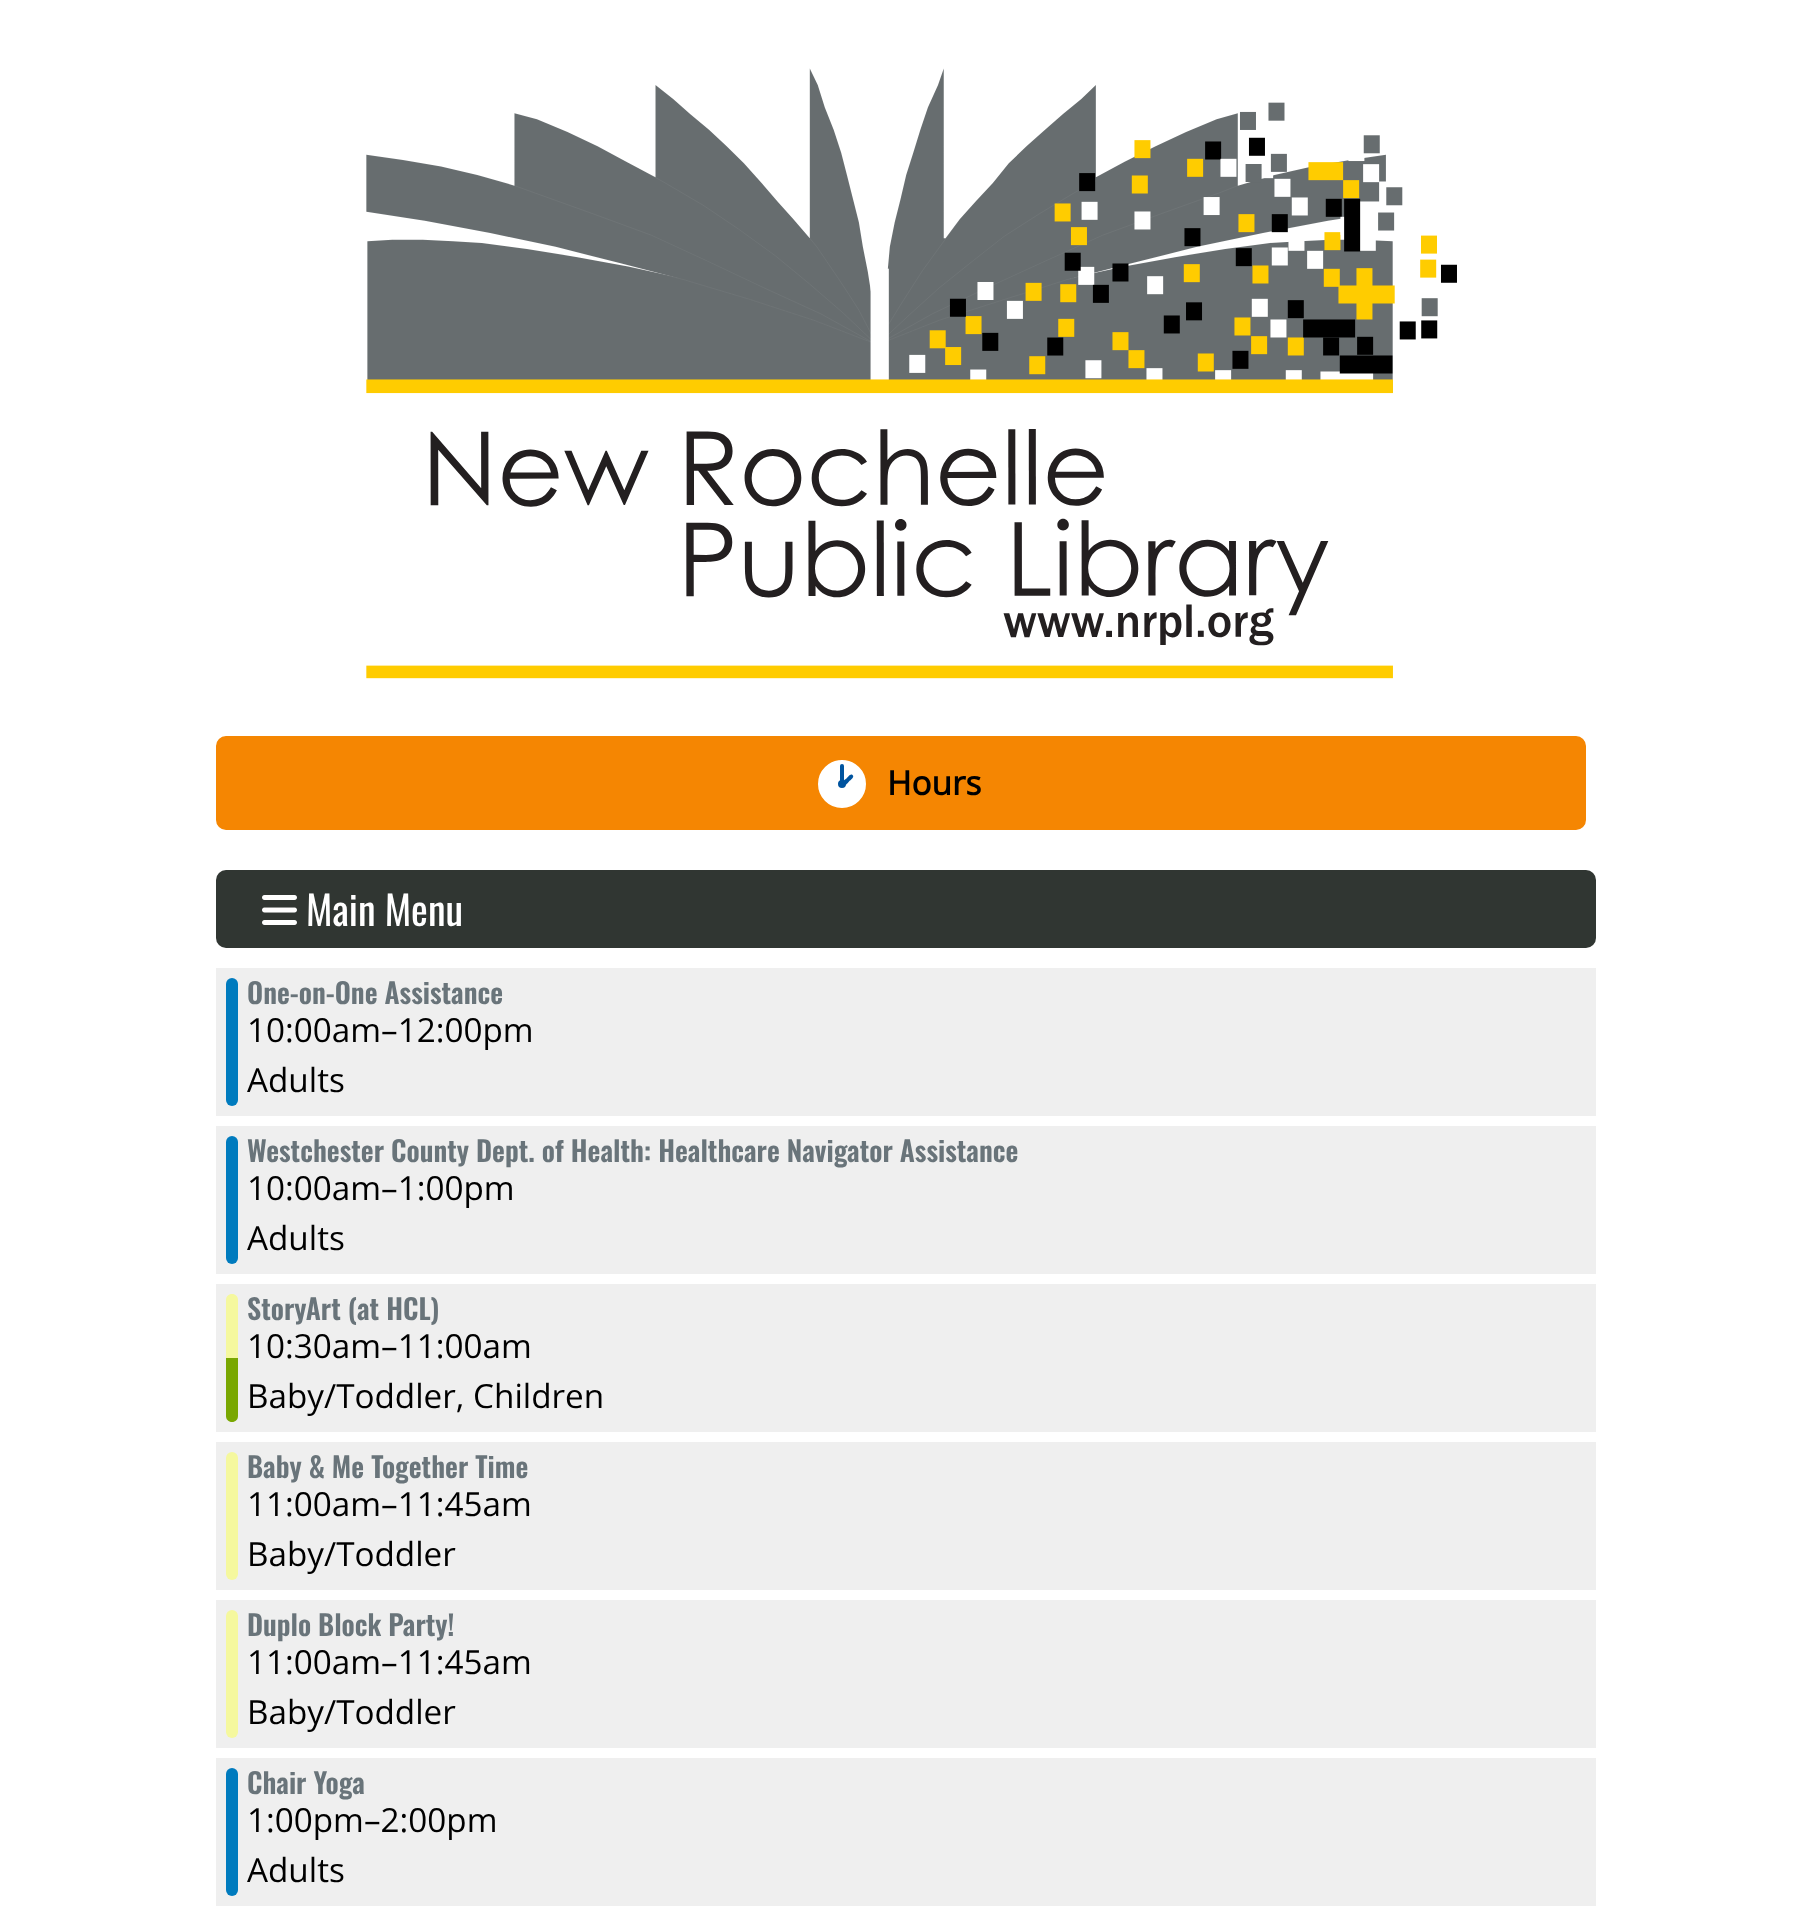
<svg xmlns="http://www.w3.org/2000/svg" width="1810" height="1906" viewBox="0 0 1810 1906">
  <rect width="100%" height="100%" fill="rgb(255,255,255)"/>
  <image x="366" y="68" width="1091" height="611" href="pic1.png"/>
  <rect x="217" y="737" width="1368" height="92" rx="9" fill="rgb(245,134,2)" stroke="rgb(245,134,2)" stroke-width="2"/>
  <circle cx="842" cy="784" r="14" fill="rgb(0,84,159)" stroke="rgb(255,255,255)" stroke-width="20"/>
  <rect x="840" y="764" width="4" height="20" rx="2" fill="rgb(0,84,159)"/>
  <path d="M852.5 775C855 777 850.5 780 849 781.5C848 782.5 845 787 843 785C840.5 782.5 845 779.5 846.5 778.5C847.5 777.5 850.5 773 852.5 775Z" fill="rgb(0,84,159)"/>
  <text x="887" y="795" font-family="Open Sans" font-size="33.25" font-weight="bold" fill="rgb(0,0,0)">Hours</text>
  <rect x="216" y="870" width="1380" height="78" rx="10" fill="rgb(48,54,50)"/>
  <image x="262" y="895" width="35" height="30" href="pic2.png"/>
  <text x="306" y="926" font-family="Oswald" font-size="40" fill="rgb(255,255,255)">Main Menu</text>
  <rect x="216" y="968" width="1380" height="148" fill="rgb(239,239,239)"/>
  <rect x="226" y="978" width="12" height="128" rx="6" fill="rgb(0,123,190)"/>
  <text x="247" y="1004" font-family="Oswald" font-size="28" font-weight="600" fill="rgb(105,116,122)">One-on-One Assistance</text>
  <g font-family="Open Sans" font-size="33.25" fill="rgb(0,0,0)">
    <text>
      <tspan x="247" y="1042">10:00am–12:00pm</tspan>
      <tspan x="247" y="1092">Adults</tspan>
    </text>
  </g>
  <rect x="216" y="1126" width="1380" height="148" fill="rgb(239,239,239)"/>
  <rect x="226" y="1136" width="12" height="128" rx="6" fill="rgb(0,123,190)"/>
  <text x="247" y="1162" font-family="Oswald" font-size="28" font-weight="600" fill="rgb(105,116,122)">Westchester County Dept. of Health: Healthcare Navigator Assistance</text>
  <g font-family="Open Sans" font-size="33.25" fill="rgb(0,0,0)">
    <text>
      <tspan x="247" y="1200">10:00am–1:00pm</tspan>
      <tspan x="247" y="1250">Adults</tspan>
    </text>
  </g>
  <rect x="216" y="1284" width="1380" height="148" fill="rgb(239,239,239)"/>
  <path d="M232 1294C235.5 1294 238 1296.5 238 1300V1358H226V1300C226 1296.5 228.5 1294 232 1294Z" fill="rgb(245,248,158)"/>
  <path d="M226 1358H238V1416C238 1419.5 235.5 1422 232 1422C228.5 1422 226 1419.5 226 1416Z" fill="rgb(121,167,1)"/>
  <text x="247" y="1320" font-family="Oswald" font-size="28" font-weight="600" fill="rgb(105,116,122)">StoryArt (at HCL)</text>
  <g font-family="Open Sans" font-size="33.25" fill="rgb(0,0,0)">
    <text>
      <tspan x="247" y="1358">10:30am–11:00am</tspan>
      <tspan x="247" y="1408">Baby/Toddler, Children</tspan>
    </text>
  </g>
  <rect x="216" y="1442" width="1380" height="148" fill="rgb(239,239,239)"/>
  <rect x="226" y="1452" width="12" height="128" rx="6" fill="rgb(245,248,158)"/>
  <text x="247" y="1478" font-family="Oswald" font-size="28" font-weight="600" fill="rgb(105,116,122)">Baby &amp; Me Together Time</text>
  <g font-family="Open Sans" font-size="33.25" fill="rgb(0,0,0)">
    <text>
      <tspan x="247" y="1516">11:00am–11:45am</tspan>
      <tspan x="247" y="1566">Baby/Toddler</tspan>
    </text>
  </g>
  <rect x="216" y="1600" width="1380" height="148" fill="rgb(239,239,239)"/>
  <rect x="226" y="1610" width="12" height="128" rx="6" fill="rgb(245,248,158)"/>
  <text x="247" y="1636" font-family="Oswald" font-size="28" font-weight="600" fill="rgb(105,116,122)">Duplo Block Party!</text>
  <g font-family="Open Sans" font-size="33.25" fill="rgb(0,0,0)">
    <text>
      <tspan x="247" y="1674">11:00am–11:45am</tspan>
      <tspan x="247" y="1724">Baby/Toddler</tspan>
    </text>
  </g>
  <rect x="216" y="1758" width="1380" height="148" fill="rgb(239,239,239)"/>
  <rect x="226" y="1768" width="12" height="128" rx="6" fill="rgb(0,123,190)"/>
  <text x="247" y="1794" font-family="Oswald" font-size="28" font-weight="600" fill="rgb(105,116,122)">Chair Yoga</text>
  <g font-family="Open Sans" font-size="33.25" fill="rgb(0,0,0)">
    <text>
      <tspan x="247" y="1832">1:00pm–2:00pm</tspan>
      <tspan x="247" y="1882">Adults</tspan>
    </text>
  </g>
</svg>
